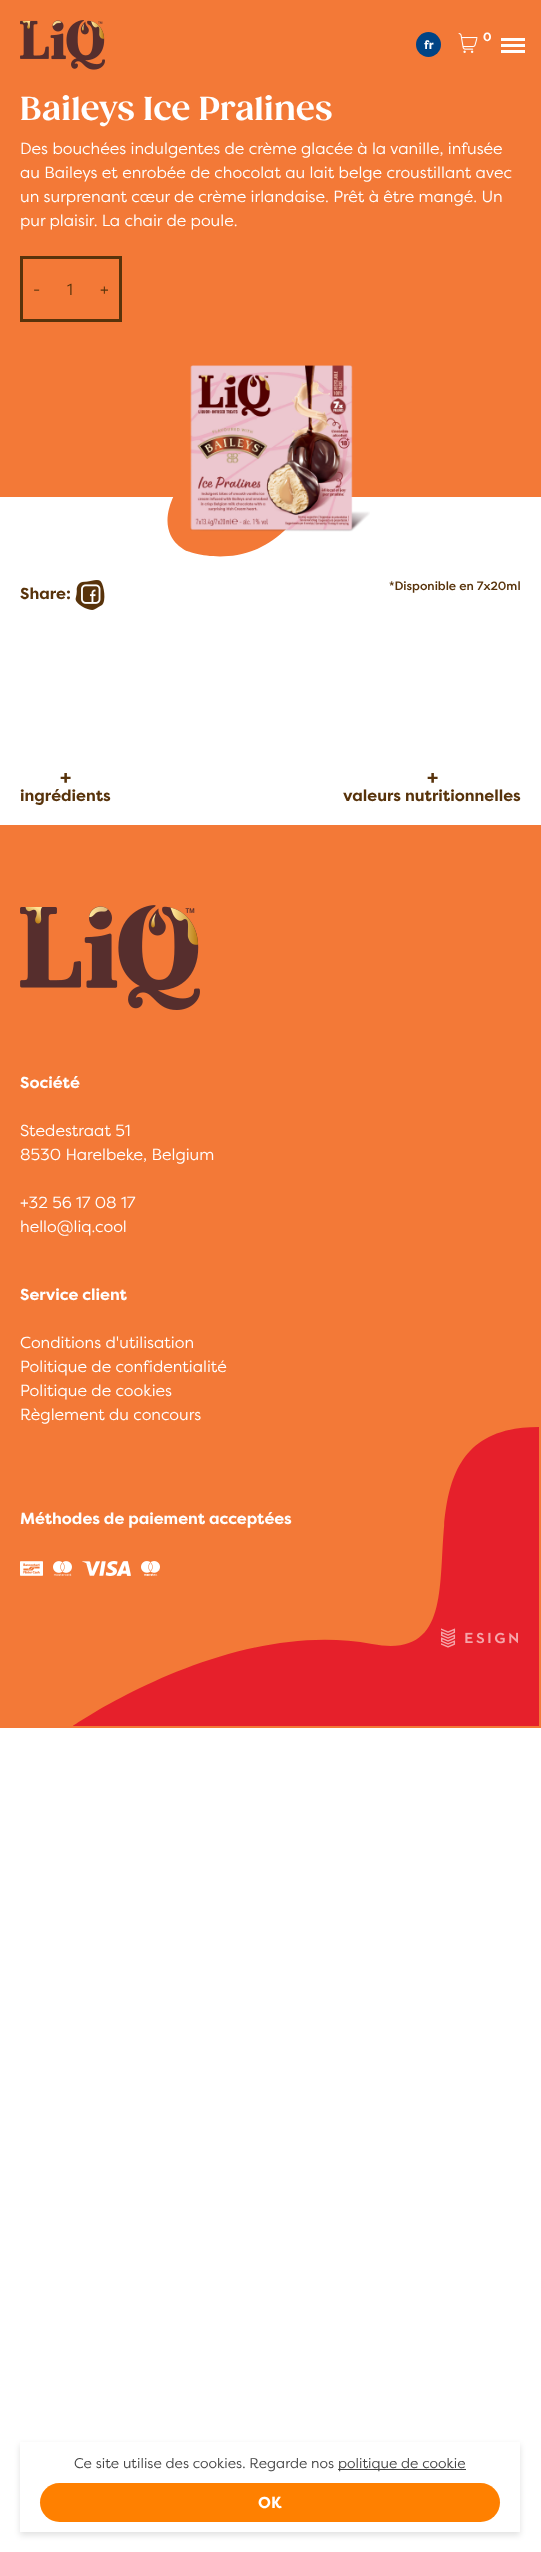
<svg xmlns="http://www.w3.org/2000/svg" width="541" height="2552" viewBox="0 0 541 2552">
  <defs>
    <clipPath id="clip1"><path d="M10 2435H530V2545H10ZM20 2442H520V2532H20Z" clip-rule="evenodd"/></clipPath>
  </defs>
  <rect width="100%" height="100%" fill="rgb(255,255,255)"/>
  <path d="M483 486H389C328 486 327 490 284 531C241 572 187 551 187 551C187 551 149 536 179 486H-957V42H483Z" fill="rgb(243,121,55)"/>
  <rect x="0" y="0" width="541" height="497" fill="rgb(243,121,55)"/>
  <image x="20" y="20" width="85" height="50" href="pic1.png"/>
  <image x="458" y="33" width="20" height="20" href="pic2.png"/>
  <text x="483" y="41" font-family="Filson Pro" font-size="12" font-weight="bold" fill="rgb(255,255,255)">0</text>
  <circle cx="428.5" cy="44.5" r="12.5" fill="rgb(0,68,133)"/>
  <text x="424" y="49" font-family="Filson Pro" font-size="12" font-weight="bold" fill="rgb(255,255,255)">fr</text>
  <rect x="501" y="38" width="24" height="3" fill="rgb(255,255,255)"/>
  <rect x="501" y="44" width="24" height="3" fill="rgb(255,255,255)"/>
  <rect x="501" y="50" width="24" height="3" fill="rgb(255,255,255)"/>
  <text x="20" y="120" font-family="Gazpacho" font-size="32" font-weight="bold" fill="rgb(255,255,255)">Baileys Ice Pralines</text>
  <g font-family="Filson Pro" font-size="16" fill="rgb(255,255,255)">
    <text>
      <tspan x="20" y="154">Des bouchées indulgentes de crème glacée à la vanille, infusée</tspan>
      <tspan x="20" y="178">au Baileys et enrobée de chocolat au lait belge croustillant avec</tspan>
      <tspan x="20" y="202">un surprenant cœur de crème irlandaise. Prêt à être mangé. Un</tspan>
      <tspan x="20" y="226">pur plaisir. La chair de poule.</tspan>
    </text>
  </g>
  <rect x="21.5" y="257.5" width="99" height="63" fill="none" stroke="rgb(88,51,11)" stroke-width="3"/>
  <g font-family="Filson Pro" font-size="16" fill="rgb(88,51,11)">
    <text x="33" y="295">-</text>
    <text x="67" y="295">1</text>
    <text x="100" y="295">+</text>
  </g>
  <image x="190" y="365" width="180" height="167" href="pic3.png"/>
  <text x="20" y="599" font-family="Filson Pro" font-size="16" font-weight="bold" fill="rgb(88,51,11)">Share:</text>
  <image x="75" y="580" width="30" height="30" href="pic4.png"/>
  <text x="389" y="590" font-family="Filson Pro" font-size="12" font-weight="500" fill="rgb(88,51,11)">*Disponible en 7x20ml</text>
  <text x="60" y="784" font-family="Filson Pro" font-size="20" font-weight="bold" fill="rgb(88,51,11)">+</text>
  <text x="20" y="801" font-family="Filson Pro" font-size="16" font-weight="bold" fill="rgb(88,51,11)">ingrédients</text>
  <text x="427" y="784" font-family="Filson Pro" font-size="20" font-weight="bold" fill="rgb(88,51,11)">+</text>
  <text x="343" y="801" font-family="Filson Pro" font-size="16" font-weight="bold" fill="rgb(88,51,11)">valeurs nutritionnelles</text>
  <rect x="0" y="825" width="541" height="903" fill="rgb(243,121,55)"/>
  <path d="M73 1726C73 1726 230 1617 372 1644C509 1670 368 1427 539 1427V1726Z" fill="rgb(230,32,43)"/>
  <image x="20" y="905" width="180" height="105" href="pic5.png"/>
  <text x="20" y="1088" font-family="Filson Pro" font-size="16" font-weight="bold" fill="rgb(255,255,255)">Société</text>
  <g font-family="Filson Pro" font-size="16" fill="rgb(255,255,255)">
    <text>
      <tspan x="20" y="1136">Stedestraat 51</tspan>
      <tspan x="20" y="1160">8530 Harelbeke, Belgium</tspan>
    </text>
    <text>
      <tspan x="20" y="1208">+32 56 17 08 17</tspan>
      <tspan x="20" y="1232">hello@liq.cool</tspan>
    </text>
  </g>
  <text x="20" y="1300" font-family="Filson Pro" font-size="16" font-weight="bold" fill="rgb(255,255,255)">Service client</text>
  <g font-family="Filson Pro" font-size="16" fill="rgb(255,255,255)">
    <text>
      <tspan x="20" y="1348">Conditions d'utilisation</tspan>
      <tspan x="20" y="1372">Politique de confidentialité</tspan>
      <tspan x="20" y="1396">Politique de cookies</tspan>
      <tspan x="20" y="1420">Règlement du concours</tspan>
    </text>
  </g>
  <text x="20" y="1524" font-family="Filson Pro" font-size="16" font-weight="bold" fill="rgb(255,255,255)">Méthodes de paiement acceptées</text>
  <image x="20" y="1561" width="23" height="15" href="pic6.png"/>
  <image x="53" y="1561" width="19" height="15" href="pic7.png"/>
  <image x="82" y="1561" width="49" height="15" href="pic8.png"/>
  <image x="141" y="1561" width="19" height="15" href="pic9.png"/>
  <image x="441" y="1628" width="77" height="20" href="pic10.png"/>
  <g clip-path="url(#clip1)">
    <rect x="20" y="2445" width="500" height="90" fill="rgba(0,0,0,0.12)" filter="blur(3px)"/>
  </g>
  <text x="74" y="2468" font-family="Filson Pro" font-size="14" fill="rgb(68,68,68)">Ce site utilise des cookies. Regarde nos</text>
  <rect x="338" y="2469" width="128" height="1" fill="rgb(68,68,68)"/>
  <text x="338" y="2468" font-family="Filson Pro" font-size="14" fill="rgb(68,68,68)">politique de cookie</text>
  <rect x="40" y="2483" width="460" height="39" rx="19.5" fill="rgb(255,128,0)"/>
  <text x="258" y="2508" font-family="Filson Pro" font-size="16" font-weight="bold" fill="rgb(255,255,255)">OK</text>
</svg>
